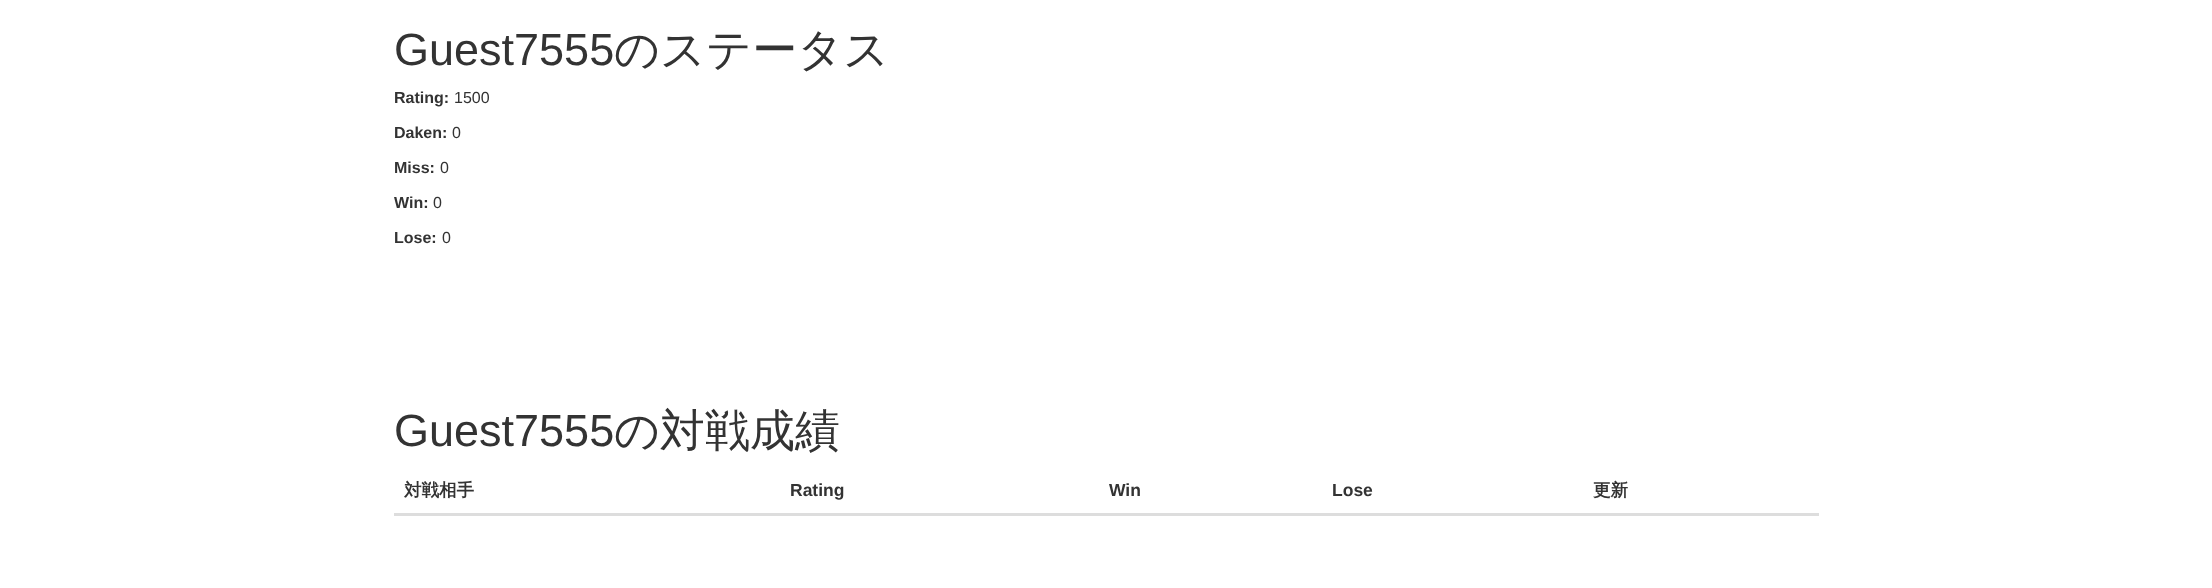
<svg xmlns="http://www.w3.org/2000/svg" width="2212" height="588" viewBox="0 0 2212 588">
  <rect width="100%" height="100%" fill="rgb(255,255,255)"/>
  <text x="394" y="65" font-family="Liberation Sans" font-size="45" fill="rgb(51,51,51)">Guest7555</text>
  <text x="614" y="65" font-family="WenQuanYi Zen Hei" font-size="45" font-weight="500" fill="rgb(51,51,51)">のステータス</text>
  <text x="394" y="103" font-family="Liberation Sans" font-size="16" font-weight="bold" fill="rgb(51,51,51)">Rating:</text>
  <text x="454" y="103" font-family="Liberation Sans" font-size="16" fill="rgb(51,51,51)">1500</text>
  <text x="394" y="138" font-family="Liberation Sans" font-size="16" font-weight="bold" fill="rgb(51,51,51)">Daken:</text>
  <text x="452" y="138" font-family="Liberation Sans" font-size="16" fill="rgb(51,51,51)">0</text>
  <text x="394" y="173" font-family="Liberation Sans" font-size="16" font-weight="bold" fill="rgb(51,51,51)">Miss:</text>
  <text x="440" y="173" font-family="Liberation Sans" font-size="16" fill="rgb(51,51,51)">0</text>
  <text x="394" y="208" font-family="Liberation Sans" font-size="16" font-weight="bold" fill="rgb(51,51,51)">Win:</text>
  <text x="433" y="208" font-family="Liberation Sans" font-size="16" fill="rgb(51,51,51)">0</text>
  <text x="394" y="243" font-family="Liberation Sans" font-size="16" font-weight="bold" fill="rgb(51,51,51)">Lose:</text>
  <text x="442" y="243" font-family="Liberation Sans" font-size="16" fill="rgb(51,51,51)">0</text>
  <text x="394" y="446" font-family="Liberation Sans" font-size="45" fill="rgb(51,51,51)">Guest7555</text>
  <text x="614" y="446" font-family="WenQuanYi Zen Hei" font-size="45" font-weight="500" fill="rgb(51,51,51)">の対戦成績</text>
  <text x="404" y="496" font-family="WenQuanYi Zen Hei" font-size="17.5" font-weight="bold" fill="rgb(51,51,51)">対戦相手</text>
  <g font-family="Liberation Sans" font-size="17.5" font-weight="bold" fill="rgb(51,51,51)">
    <text x="790" y="496">Rating</text>
    <text x="1109" y="496">Win</text>
    <text x="1332" y="496">Lose</text>
  </g>
  <rect x="394" y="513" width="1425" height="3" fill="rgb(221,221,221)"/>
  <text x="1593" y="496" font-family="WenQuanYi Zen Hei" font-size="17.5" font-weight="bold" fill="rgb(51,51,51)">更新</text>
</svg>
